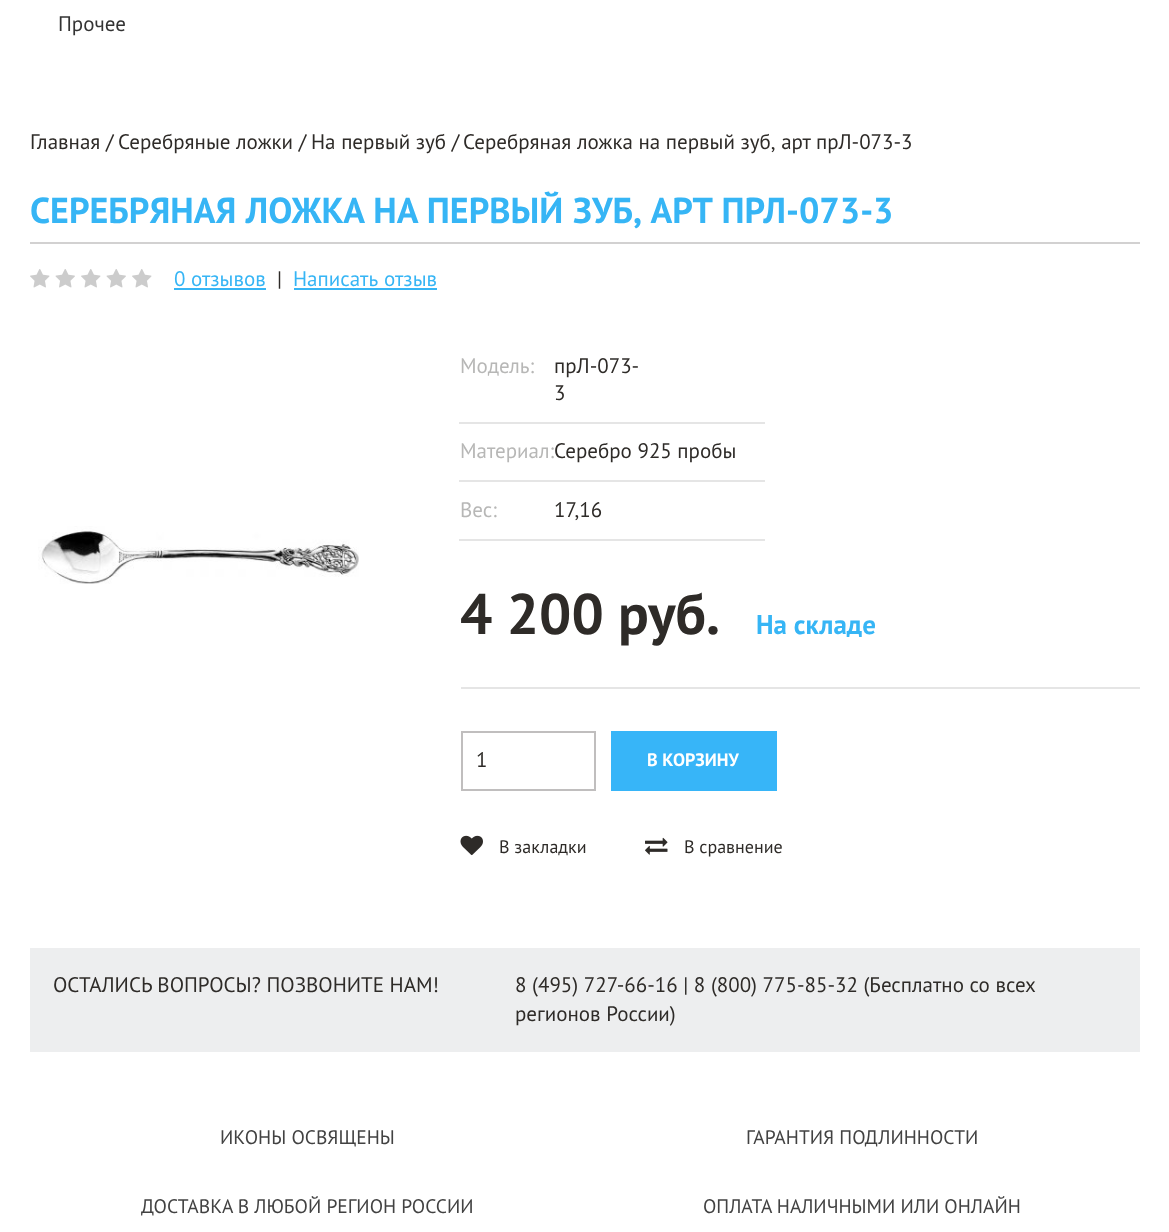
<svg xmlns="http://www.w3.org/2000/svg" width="1169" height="1232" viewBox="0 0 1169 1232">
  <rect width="100%" height="100%" fill="rgb(255,255,255)"/>
  <text x="58" y="31" font-family="PT Sans" font-size="21" fill="rgb(51,51,51)">Прочее</text>
  <g font-family="PT Sans" font-size="21" fill="rgb(46,43,40)">
    <text x="30" y="149">Главная /</text>
    <text x="118" y="149">Серебряные ложки /</text>
    <text x="311" y="149">На первый зуб /</text>
    <text x="463" y="149">Серебряная ложка на первый зуб, арт прЛ-073-3</text>
  </g>
  <rect x="30" y="242" width="1110" height="2" fill="rgb(210,209,209)"/>
  <text x="30" y="223" word-spacing="0.75" font-family="PT Sans" font-size="36" font-weight="bold" fill="rgb(54,181,245)">СЕРЕБРЯНАЯ ЛОЖКА НА ПЕРВЫЙ ЗУБ, АРТ ПРЛ-073-3</text>
  <image x="30" y="269" width="20" height="19" href="pic1.png"/>
  <image x="55" y="269" width="20" height="19" href="pic2.png"/>
  <image x="81" y="269" width="20" height="19" href="pic1.png"/>
  <image x="106" y="269" width="20" height="19" href="pic2.png"/>
  <image x="132" y="269" width="20" height="19" href="pic1.png"/>
  <text x="174" y="286" font-family="PT Sans" font-size="21" fill="rgb(54,181,245)">0 отзывов</text>
  <rect x="174" y="288" width="92" height="2" fill="rgb(54,181,245)"/>
  <text x="277" y="286" font-family="PT Sans" font-size="21" fill="rgb(46,43,40)">|</text>
  <text x="293" y="286" word-spacing="1" font-family="PT Sans" font-size="21" fill="rgb(54,181,245)">Написать отзыв</text>
  <rect x="294" y="288" width="143" height="2" fill="rgb(54,181,245)"/>
  <image x="38" y="526" width="321" height="58" href="pic3.png"/>
  <rect x="459" y="422" width="306" height="2" fill="rgb(229,229,229)"/>
  <text x="460" y="373" font-family="PT Sans" font-size="21" fill="rgb(183,183,182)">Модель:</text>
  <g font-family="PT Sans" font-size="21" fill="rgb(46,43,40)">
    <text>
      <tspan x="554" y="373">прЛ-073-</tspan>
      <tspan x="554" y="400">3</tspan>
    </text>
  </g>
  <rect x="459" y="480" width="306" height="2" fill="rgb(229,229,229)"/>
  <text x="460" y="458" font-family="PT Sans" font-size="21" fill="rgb(183,183,182)">Материал:</text>
  <text x="554" y="458" font-family="PT Sans" font-size="21" fill="rgb(46,43,40)">Серебро 925 пробы</text>
  <rect x="459" y="539" width="306" height="2" fill="rgb(229,229,229)"/>
  <text x="460" y="517" font-family="PT Sans" font-size="21" fill="rgb(183,183,182)">Вес:</text>
  <text x="554" y="517" font-family="PT Sans" font-size="21" fill="rgb(46,43,40)">17,16</text>
  <rect x="461" y="687" width="679" height="2" fill="rgb(229,229,229)"/>
  <text x="460" y="634" font-family="PT Sans" font-size="57" font-weight="bold" fill="rgb(46,43,40)">4 200 руб.</text>
  <text x="756" y="634" font-family="PT Sans" font-size="27" font-weight="bold" fill="rgb(54,181,245)">На складе</text>
  <rect x="462" y="732" width="133" height="58" fill="none" stroke="rgb(192,190,190)" stroke-width="2"/>
  <text x="476" y="767" font-family="PT Sans" font-size="21" fill="rgb(46,43,40)">1</text>
  <rect x="611" y="731" width="166" height="60" fill="rgb(55,181,248)"/>
  <text x="647" y="766" font-family="PT Sans" font-size="18" font-weight="bold" fill="rgb(255,255,255)">В КОРЗИНУ</text>
  <image x="460" y="835" width="23" height="21" href="pic4.png"/>
  <text x="499" y="853" font-family="PT Sans" font-size="18" fill="rgb(46,43,40)">В закладки</text>
  <image x="645" y="837" width="23" height="18" href="pic5.png"/>
  <text x="684" y="853" font-family="PT Sans" font-size="18" fill="rgb(46,43,40)">В сравнение</text>
  <rect x="30" y="948" width="1110" height="104" fill="rgb(237,238,239)"/>
  <g font-family="PT Sans" font-size="21" fill="rgb(46,43,40)">
    <text x="53" y="992">ОСТАЛИСЬ ВОПРОСЫ? ПОЗВОНИТЕ НАМ!</text>
    <text>
      <tspan x="515" y="992">8 (495) 727-66-16 | 8 (800) 775-85-32 (Бесплатно со всех</tspan>
      <tspan x="515" y="1021">регионов России)</tspan>
    </text>
  </g>
  <g font-family="PT Sans" font-size="19.5" fill="rgb(66,66,66)">
    <text x="220" y="1144">ИКОНЫ ОСВЯЩЕНЫ</text>
    <text x="746" y="1144">ГАРАНТИЯ ПОДЛИННОСТИ</text>
    <text x="141" y="1213">ДОСТАВКА В ЛЮБОЙ РЕГИОН РОССИИ</text>
    <text x="703" y="1213">ОПЛАТА НАЛИЧНЫМИ ИЛИ ОНЛАЙН</text>
  </g>
</svg>
